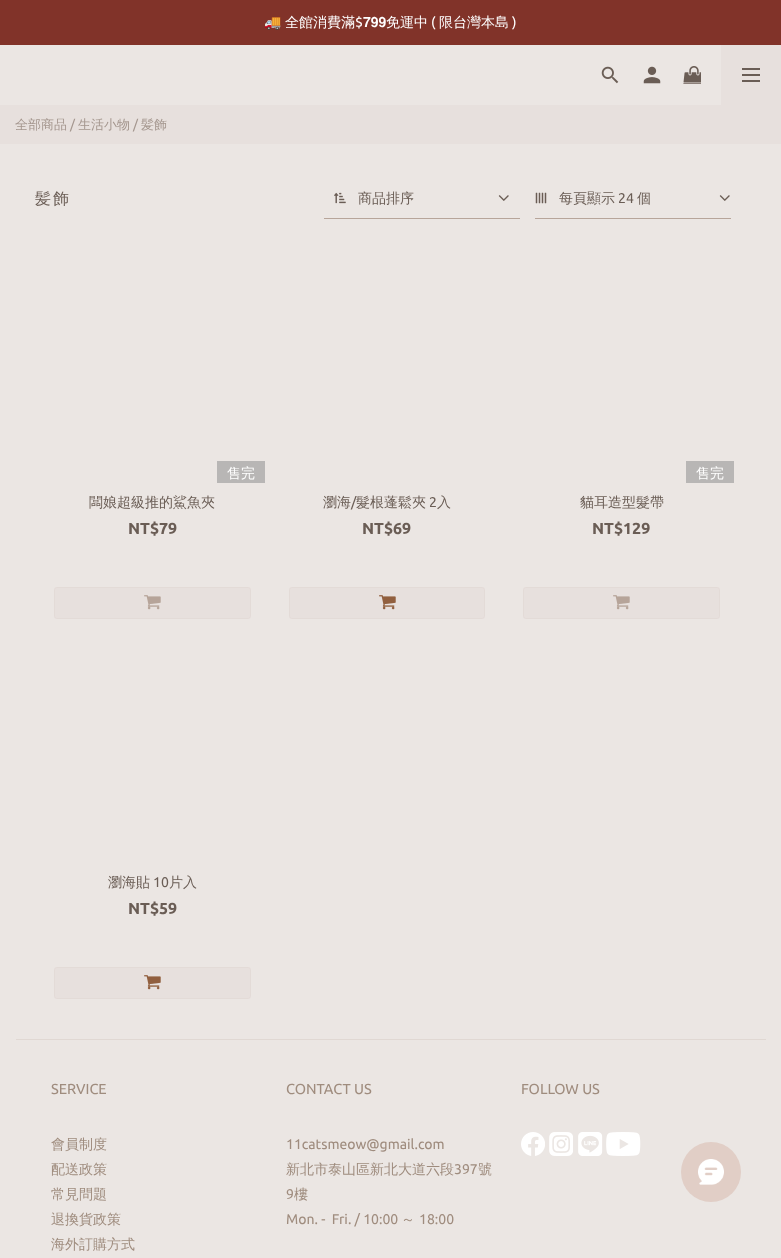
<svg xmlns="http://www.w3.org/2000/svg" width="781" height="1258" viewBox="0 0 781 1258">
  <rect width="100%" height="100%" fill="rgb(235,230,227)"/>
  <rect x="0" y="0" width="781" height="45" fill="rgb(129,51,41)"/>
  <text x="264" y="27" font-family="Noto Color Emoji" font-size="14" fill="rgb(255,255,255)">🚚</text>
  <text x="285" y="27" font-family="WenQuanYi Zen Hei" font-size="14" font-weight="500" fill="rgb(255,255,255)">全館消費滿</text>
  <text x="355" y="27" font-family="Ubuntu" font-size="14" fill="rgb(255,255,255)">$</text>
  <text x="363" y="27" font-family="FreeSans" font-size="14" fill="rgb(255,255,255)">𝟕𝟗𝟗</text>
  <text x="386" y="27" font-family="WenQuanYi Zen Hei" font-size="14" font-weight="500" fill="rgb(255,255,255)">免運中</text>
  <text x="431" y="27" font-family="Ubuntu" font-size="14" fill="rgb(255,255,255)">(</text>
  <text x="439" y="27" font-family="WenQuanYi Zen Hei" font-size="14" font-weight="500" fill="rgb(255,255,255)">限台灣本島</text>
  <text x="512" y="27" font-family="Ubuntu" font-size="14" fill="rgb(255,255,255)">)</text>
  <image x="601" y="66" width="18" height="18" href="pic1.png"/>
  <image x="643" y="66" width="18" height="18" href="pic2.png"/>
  <image x="683" y="66" width="18" height="18" href="pic3.png"/>
  <rect x="721" y="45" width="60" height="60" fill="rgb(231,224,221)"/>
  <rect x="742" y="74" width="18" height="2" fill="rgb(106,93,85)"/>
  <rect x="742" y="68" width="18" height="2" fill="rgb(106,93,85)"/>
  <rect x="742" y="80" width="18" height="2" fill="rgb(106,93,85)"/>
  <rect x="0" y="105" width="781" height="39" fill="rgb(231,224,221)"/>
  <text x="15" y="129" font-family="WenQuanYi Zen Hei" font-size="13" font-weight="500" fill="rgb(164,150,142)">全部商品</text>
  <text x="70" y="129" font-family="Ubuntu" font-size="13" fill="rgb(164,150,142)">/</text>
  <text x="78" y="129" font-family="WenQuanYi Zen Hei" font-size="13" font-weight="500" fill="rgb(164,150,142)">生活小物</text>
  <text x="133" y="129" font-family="Ubuntu" font-size="13" fill="rgb(164,150,142)">/</text>
  <text x="141" y="129" font-family="WenQuanYi Zen Hei" font-size="13" font-weight="500" fill="rgb(164,150,142)">髪飾</text>
  <text x="35" y="204" font-family="WenQuanYi Zen Hei" font-size="16" font-weight="500" letter-spacing="2" fill="rgb(106,93,85)">髪飾</text>
  <rect x="324" y="218" width="196" height="1" fill="rgb(183,165,154)"/>
  <image x="334" y="192" width="12" height="12" href="pic4.png"/>
  <text x="358" y="203" font-family="WenQuanYi Zen Hei" font-size="14" font-weight="500" fill="rgb(106,93,85)">商品排序</text>
  <image x="498" y="195" width="11" height="6" href="pic5.png"/>
  <rect x="535" y="218" width="196" height="1" fill="rgb(183,165,154)"/>
  <image x="535" y="192" width="12" height="12" href="pic6.png"/>
  <text x="559" y="203" font-family="WenQuanYi Zen Hei" font-size="14" font-weight="500" fill="rgb(106,93,85)">每頁顯示</text>
  <text x="618" y="203" font-family="Ubuntu" font-size="14" fill="rgb(106,93,85)">24</text>
  <text x="637" y="203" font-family="WenQuanYi Zen Hei" font-size="14" font-weight="500" fill="rgb(106,93,85)">個</text>
  <image x="719" y="195" width="11" height="6" href="pic5.png"/>
  <rect x="217" y="461" width="48" height="22" fill="rgb(184,182,181)"/>
  <text x="227" y="478" font-family="WenQuanYi Zen Hei" font-size="14" font-weight="500" fill="rgb(255,255,255)">售完</text>
  <text x="89" y="507" font-family="WenQuanYi Zen Hei" font-size="14" font-weight="500" fill="rgb(106,93,85)">闆娘超級推的鯊魚夾</text>
  <text x="128" y="534" font-family="Ubuntu" font-size="16" font-weight="bold" fill="rgb(106,93,85)">NT$79</text>
  <rect x="54" y="587" width="197" height="32" rx="3" fill="rgb(231,224,221)"/>
  <rect x="54.5" y="587.5" width="196" height="31" rx="2.5" fill="none" stroke="rgba(213,202,195,0.2)"/>
  <image x="144" y="595" width="17" height="15" href="pic7.png"/>
  <text x="323" y="507" font-family="WenQuanYi Zen Hei" font-size="14" font-weight="500" fill="rgb(106,93,85)">瀏海</text>
  <text x="351" y="507" font-family="Ubuntu" font-size="14" fill="rgb(106,93,85)">/</text>
  <text x="356" y="507" font-family="WenQuanYi Zen Hei" font-size="14" font-weight="500" fill="rgb(106,93,85)">髮根蓬鬆夾</text>
  <text x="429" y="507" font-family="Ubuntu" font-size="14" fill="rgb(106,93,85)">2</text>
  <text x="437" y="507" font-family="WenQuanYi Zen Hei" font-size="14" font-weight="500" fill="rgb(106,93,85)">入</text>
  <text x="362" y="534" font-family="Ubuntu" font-size="16" font-weight="bold" fill="rgb(106,93,85)">NT$69</text>
  <rect x="289" y="587" width="196" height="32" rx="3" fill="rgb(231,224,221)"/>
  <rect x="289.5" y="587.5" width="195" height="31" rx="2.5" fill="none" stroke="rgba(213,202,195,0.2)"/>
  <image x="379" y="595" width="17" height="15" href="pic8.png"/>
  <rect x="686" y="461" width="48" height="22" fill="rgb(184,182,181)"/>
  <text x="696" y="478" font-family="WenQuanYi Zen Hei" font-size="14" font-weight="500" fill="rgb(255,255,255)">售完</text>
  <text x="580" y="507" font-family="WenQuanYi Zen Hei" font-size="14" font-weight="500" fill="rgb(106,93,85)">貓耳造型髮帶</text>
  <text x="592" y="534" font-family="Ubuntu" font-size="16" font-weight="bold" fill="rgb(106,93,85)">NT$129</text>
  <rect x="523" y="587" width="197" height="32" rx="3" fill="rgb(231,224,221)"/>
  <rect x="523.5" y="587.5" width="196" height="31" rx="2.5" fill="none" stroke="rgba(213,202,195,0.2)"/>
  <image x="613" y="595" width="17" height="15" href="pic7.png"/>
  <text x="108" y="887" font-family="WenQuanYi Zen Hei" font-size="14" font-weight="500" fill="rgb(106,93,85)">瀏海貼</text>
  <text x="153" y="887" font-family="Ubuntu" font-size="14" fill="rgb(106,93,85)">10</text>
  <text x="169" y="887" font-family="WenQuanYi Zen Hei" font-size="14" font-weight="500" fill="rgb(106,93,85)">片入</text>
  <text x="128" y="914" font-family="Ubuntu" font-size="16" font-weight="bold" fill="rgb(106,93,85)">NT$59</text>
  <rect x="54" y="967" width="197" height="32" rx="3" fill="rgb(231,224,221)"/>
  <rect x="54.5" y="967.5" width="196" height="31" rx="2.5" fill="none" stroke="rgba(213,202,195,0.2)"/>
  <image x="144" y="975" width="17" height="15" href="pic8.png"/>
  <rect x="16" y="1039" width="750" height="1" fill="rgb(224,216,211)"/>
  <text x="51" y="1094" font-family="Ubuntu" font-size="14.5" fill="rgb(159,140,126)">SERVICE</text>
  <g font-family="WenQuanYi Zen Hei" font-size="14" font-weight="500" fill="rgb(159,140,126)">
    <text>
      <tspan x="51" y="1149">會員制度</tspan>
      <tspan x="51" y="1174">配送政策</tspan>
      <tspan x="51" y="1199">常見問題</tspan>
      <tspan x="51" y="1224">退換貨政策</tspan>
      <tspan x="51" y="1249">海外訂購方式</tspan>
    </text>
  </g>
  <text x="286" y="1094" font-family="Ubuntu" font-size="14.5" fill="rgb(159,140,126)">CONTACT US</text>
  <text x="286" y="1149" font-family="Ubuntu" font-size="14" fill="rgb(159,140,126)">11catsmeow@gmail.com</text>
  <text x="286" y="1174" font-family="WenQuanYi Zen Hei" font-size="14" font-weight="500" fill="rgb(159,140,126)">新北市泰山區新北大道六段</text>
  <text x="454" y="1174" font-family="Ubuntu" font-size="14" fill="rgb(159,140,126)">397</text>
  <text x="478" y="1174" font-family="WenQuanYi Zen Hei" font-size="14" font-weight="500" fill="rgb(159,140,126)">號</text>
  <text x="286" y="1199" font-family="Ubuntu" font-size="14" fill="rgb(159,140,126)">9</text>
  <text x="294" y="1199" font-family="WenQuanYi Zen Hei" font-size="14" font-weight="500" fill="rgb(159,140,126)">樓</text>
  <text x="286" y="1224" font-family="Ubuntu" font-size="14" fill="rgb(159,140,126)" xml:space="preserve">Mon. -  Fri. / 10:00</text>
  <text x="401" y="1224" font-family="WenQuanYi Zen Hei" font-size="14" font-weight="500" fill="rgb(159,140,126)">～</text>
  <text x="419" y="1224" font-family="Ubuntu" font-size="14" fill="rgb(159,140,126)">18:00</text>
  <text x="521" y="1094" font-family="Ubuntu" font-size="14.5" fill="rgb(159,140,126)">FOLLOW US</text>
  <image x="521" y="1132" width="24" height="24" href="pic9.png"/>
  <image x="549" y="1132" width="24" height="24" href="pic10.png"/>
  <image x="578" y="1132" width="25" height="24" href="pic11.png"/>
  <image x="606" y="1132" width="35" height="24" href="pic12.png"/>
  <circle cx="711" cy="1172" r="30" fill="rgb(225,206,198)"/>
  <image x="698" y="1159" width="26" height="26" href="pic13.png"/>
</svg>
